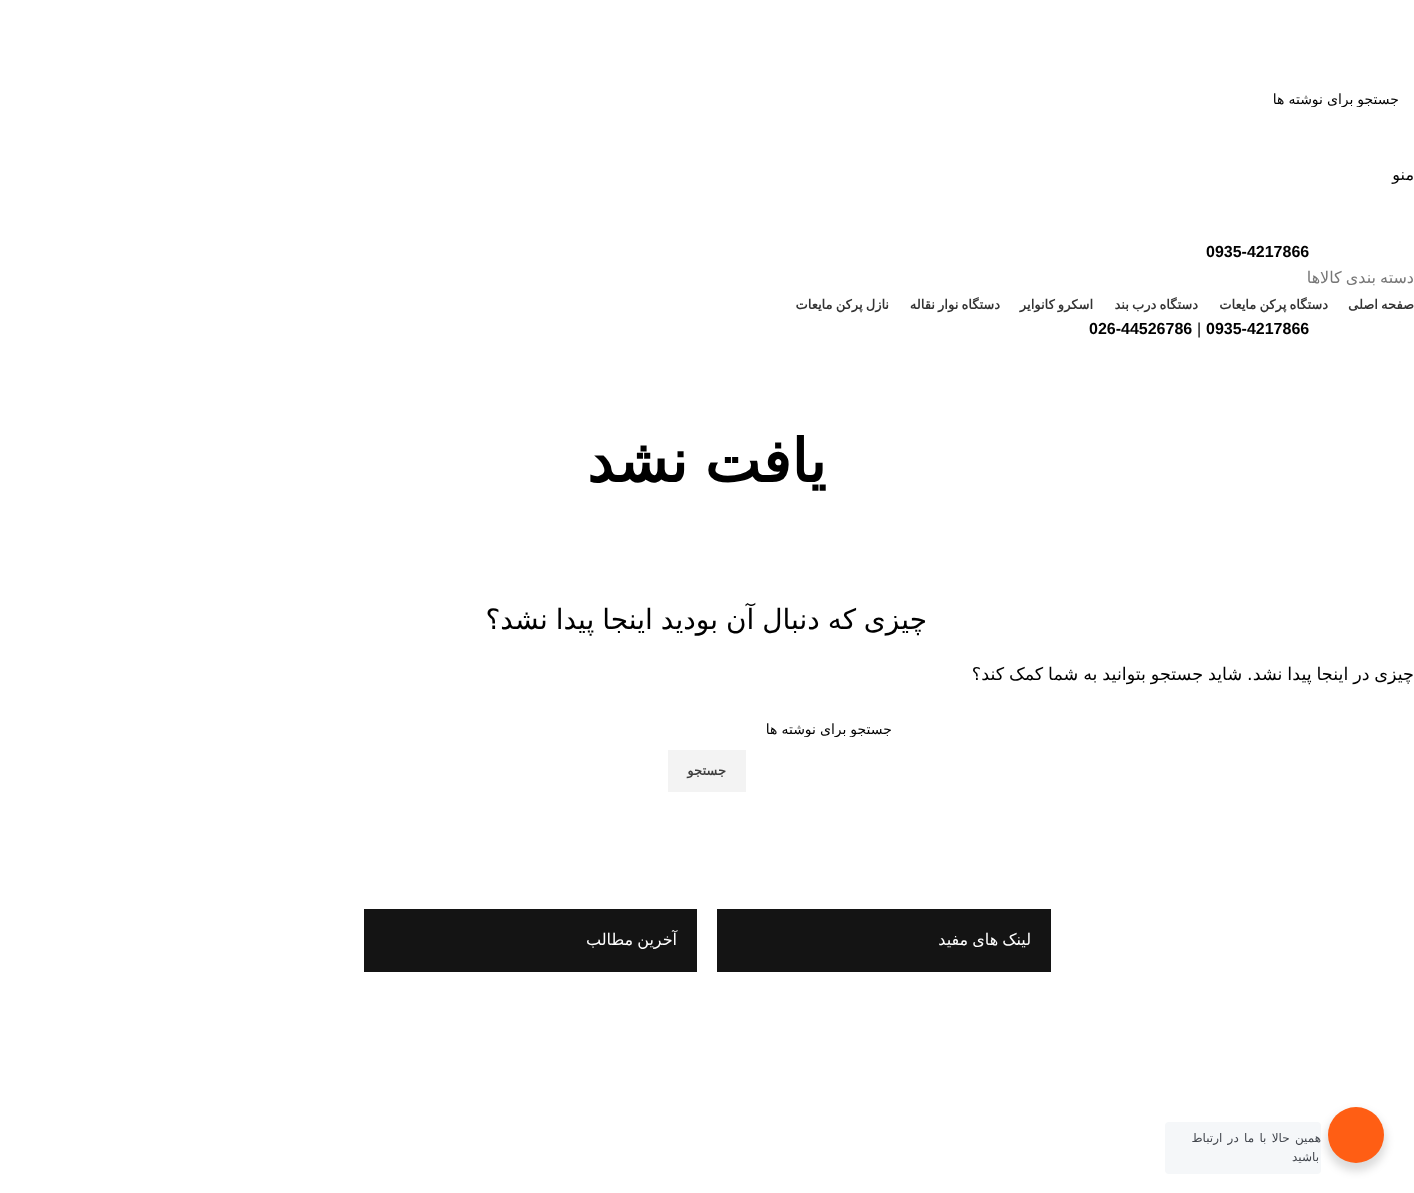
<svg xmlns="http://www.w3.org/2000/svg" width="1414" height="1193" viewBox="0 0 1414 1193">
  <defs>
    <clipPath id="clip1"><rect x="15" y="91" width="1384" height="16"/></clipPath>
    <clipPath id="clip2"><rect x="522" y="721" width="370" height="16"/></clipPath>
  </defs>
  <rect width="100%" height="100%" fill="rgb(255,255,255)"/>
  <g clip-path="url(#clip1)">
    <text x="1399" y="104" word-spacing="-0.5" font-family="DejaVu Sans" font-size="14" direction="rtl" fill="rgb(0,0,0)">جستجو برای نوشته ها</text>
  </g>
  <text x="1414" y="180" font-family="DejaVu Sans" font-size="16" direction="rtl" fill="rgb(0,0,0)">منو</text>
  <text x="1206" y="257" font-family="Liberation Sans" font-size="16" font-weight="bold" fill="rgb(0,0,0)">0935-4217866</text>
  <text x="1414" y="283" word-spacing="-1" font-family="DejaVu Sans" font-size="16" direction="rtl" fill="rgb(119,119,119)">دسته بندی کالاها</text>
  <g font-family="DejaVu Sans" font-size="13" font-weight="bold" direction="rtl" fill="rgb(51,51,51)">
    <text x="1414" y="309" word-spacing="-1">صفحه اصلی</text>
    <text x="1328" y="309" word-spacing="-1">دستگاه پرکن مایعات</text>
    <text x="1198" y="309" word-spacing="-1">دستگاه درب بند</text>
    <text x="1093" y="309" word-spacing="-1">اسکرو کانوایر</text>
    <text x="1000" y="309" word-spacing="-1">دستگاه نوار نقاله</text>
    <text x="889" y="309" word-spacing="-1">نازل پرکن مایعات</text>
  </g>
  <text x="1206" y="334" font-family="Liberation Sans" font-size="16" font-weight="bold" fill="rgb(0,0,0)">0935-4217866</text>
  <text x="1197" y="334" font-family="Liberation Sans" font-size="16" fill="rgb(0,0,0)">|</text>
  <text x="1089" y="334" font-family="Liberation Sans" font-size="16" font-weight="bold" fill="rgb(0,0,0)">026-44526786</text>
  <text x="826" y="482" word-spacing="-2" font-family="DejaVu Sans" font-size="59.5" font-weight="bold" direction="rtl" fill="rgb(0,0,0)">یافت نشد</text>
  <text x="927" y="629" word-spacing="-1" font-family="DejaVu Sans" font-size="28" direction="rtl" fill="rgb(0,0,0)">چیزی که دنبال آن بودید اینجا پیدا نشد؟</text>
  <text x="1414" y="680" word-spacing="-0.75" font-family="DejaVu Sans" font-size="17.6" direction="rtl" fill="rgb(0,0,0)">چیزی در اینجا پیدا نشد. شاید جستجو بتوانید به شما کمک کند؟</text>
  <g clip-path="url(#clip2)">
    <text x="892" y="734" word-spacing="-0.5" font-family="DejaVu Sans" font-size="14" direction="rtl" fill="rgb(0,0,0)">جستجو برای نوشته ها</text>
  </g>
  <rect x="668" y="750" width="78" height="42" fill="rgb(243,243,243)"/>
  <text x="726" y="775" font-family="DejaVu Sans" font-size="13" font-weight="bold" direction="rtl" fill="rgb(62,62,62)">جستجو</text>
  <rect x="717" y="909" width="334" height="63" fill="rgb(20,20,20)"/>
  <text x="1031" y="945" word-spacing="-1" font-family="DejaVu Sans" font-size="16" direction="rtl" fill="rgb(255,255,255)">لینک های مفید</text>
  <rect x="364" y="909" width="333" height="63" fill="rgb(20,20,20)"/>
  <text x="677" y="945" word-spacing="-1" font-family="DejaVu Sans" font-size="16" direction="rtl" fill="rgb(255,255,255)">آخرین مطالب</text>
  <rect x="1326" y="1111" width="60" height="60" rx="30" fill="rgba(0,0,0,0.14)" filter="blur(4px)"/>
  <circle cx="1356" cy="1135" r="28" fill="rgb(255,94,20)"/>
  <rect x="1165" y="1122" width="156" height="52" rx="4" fill="rgb(245,247,249)"/>
  <g font-family="DejaVu Sans" font-size="12" letter-spacing="-0.35" direction="rtl" fill="rgb(67,71,78)">
    <text x="1321" y="1142" word-spacing="1.5">همین حالا با ما در ارتباط</text>
    <text x="1319" y="1161">باشید</text>
  </g>
</svg>
